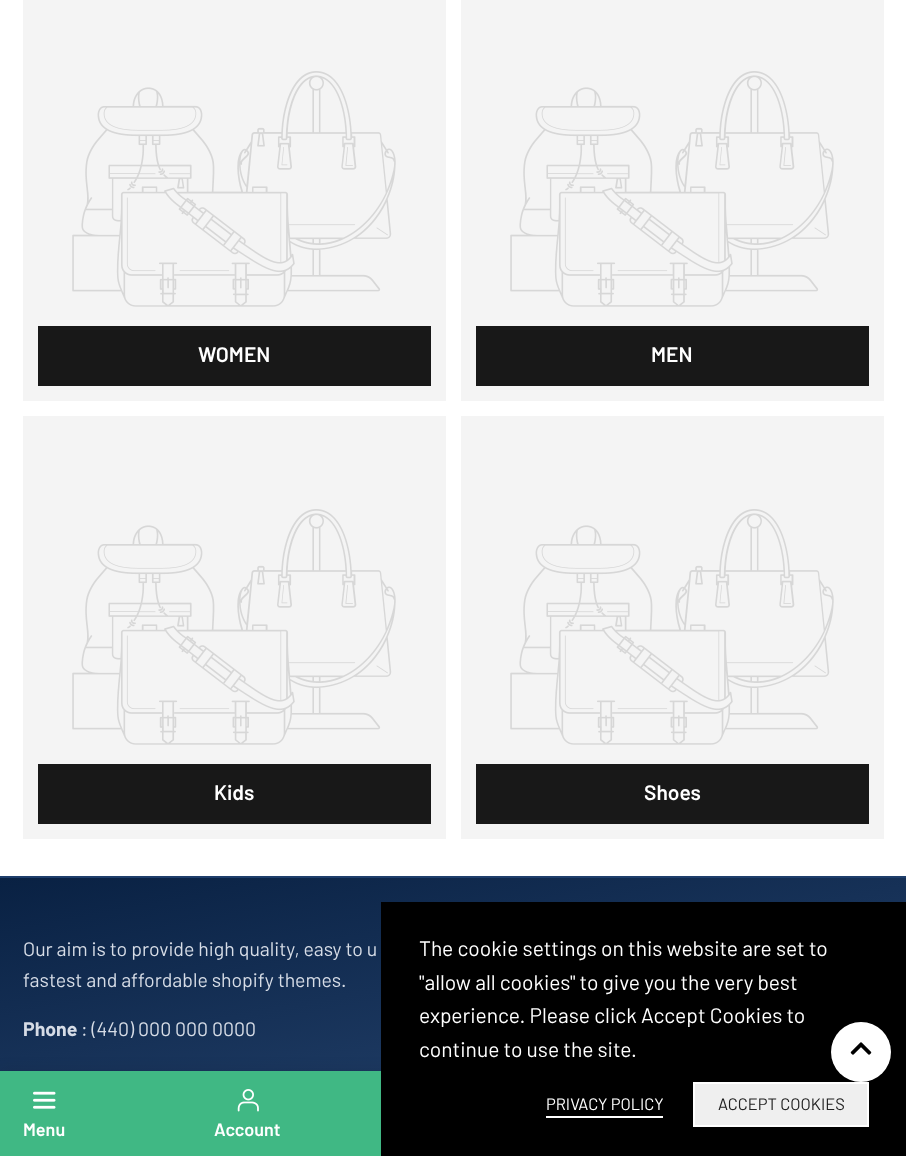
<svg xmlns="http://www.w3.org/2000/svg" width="906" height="1156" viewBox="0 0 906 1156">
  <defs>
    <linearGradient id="g1" gradientUnits="userSpaceOnUse" x1="353" y1="809" x2="553" y2="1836"><stop offset="0" stop-color="rgb(9,33,67)"/><stop offset="1" stop-color="rgb(84,125,182)"/></linearGradient>
  </defs>
  <rect width="100%" height="100%" fill="rgb(255,255,255)"/>
  <rect x="23" y="0" width="423" height="401" fill="rgb(244,244,244)"/>
  <image x="72" y="71" width="324" height="236" href="pic1.png"/>
  <rect x="38" y="326" width="393" height="60" fill="rgb(24,24,24)"/>
  <text x="198" y="362" font-family="Barlow" font-size="21" font-weight="600" fill="rgb(255,255,255)">WOMEN</text>
  <rect x="461" y="0" width="423" height="401" fill="rgb(244,244,244)"/>
  <image x="510" y="71" width="324" height="236" href="pic1.png"/>
  <rect x="476" y="326" width="393" height="60" fill="rgb(24,24,24)"/>
  <text x="651" y="362" font-family="Barlow" font-size="21" font-weight="600" fill="rgb(255,255,255)">MEN</text>
  <rect x="23" y="416" width="423" height="423" fill="rgb(244,244,244)"/>
  <image x="72" y="509" width="324" height="236" href="pic1.png"/>
  <rect x="38" y="764" width="393" height="60" fill="rgb(24,24,24)"/>
  <text x="214" y="800" font-family="Barlow" font-size="21" font-weight="600" fill="rgb(255,255,255)">Kids</text>
  <rect x="461" y="416" width="423" height="423" fill="rgb(244,244,244)"/>
  <image x="510" y="509" width="324" height="236" href="pic1.png"/>
  <rect x="476" y="764" width="393" height="60" fill="rgb(24,24,24)"/>
  <text x="644" y="800" font-family="Barlow" font-size="21" font-weight="600" fill="rgb(255,255,255)">Shoes</text>
  <rect x="0" y="878" width="906" height="193" fill="url(#g1)"/>
  <rect x="0" y="876" width="906" height="2" fill="rgb(30,62,107)"/>
  <g font-family="Barlow" font-size="19.5" fill="rgb(214,220,230)">
    <text>
      <tspan x="23" y="956">Our aim is to provide high quality, easy to u</tspan>
      <tspan x="23" y="987">fastest and affordable shopify themes.</tspan>
    </text>
  </g>
  <text x="23" y="1036" font-family="Barlow" font-size="19.5" font-weight="bold" fill="rgb(214,220,230)">Phone</text>
  <text x="81" y="1036" font-family="Barlow" font-size="19.5" fill="rgb(214,220,230)">: (440) 000 000 0000</text>
  <rect x="0" y="1071" width="906" height="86" fill="rgba(0,0,0,0.1)" filter="blur(7.5px)"/>
  <rect x="381" y="902" width="525" height="254" fill="rgb(0,0,0)"/>
  <g font-family="Barlow" font-size="21" fill="rgb(255,255,255)">
    <text>
      <tspan x="419" y="956">The cookie settings on this website are set to</tspan>
      <tspan x="419" y="990">"allow all cookies" to give you the very best</tspan>
      <tspan x="419" y="1023">experience. Please click Accept Cookies to</tspan>
      <tspan x="419" y="1057">continue to use the site.</tspan>
    </text>
  </g>
  <rect x="546" y="1116" width="117" height="2" fill="rgb(255,255,255)"/>
  <text x="546" y="1110" font-family="Barlow" font-size="16.5" fill="rgb(255,255,255)">PRIVACY POLICY</text>
  <rect x="694" y="1083" width="174" height="43" fill="rgb(239,239,239)" stroke="rgb(255,255,255)" stroke-width="2"/>
  <text x="718" y="1110" font-family="Barlow" font-size="16.5" fill="rgb(34,34,34)">ACCEPT COOKIES</text>
  <circle cx="861" cy="1052" r="30" fill="rgb(255,255,255)"/>
  <image x="850" y="1042" width="22" height="13" href="pic2.png"/>
  <rect x="0" y="1071" width="381" height="85" fill="rgb(64,184,132)"/>
  <image x="33" y="1091" width="23" height="18" href="pic3.png"/>
  <text x="23" y="1136" font-family="Barlow" font-size="18" font-weight="600" fill="rgb(255,255,255)">Menu</text>
  <image x="237" y="1089" width="22" height="23" href="pic4.png"/>
  <text x="214" y="1136" font-family="Barlow" font-size="18" font-weight="600" fill="rgb(255,255,255)">Account</text>
</svg>
